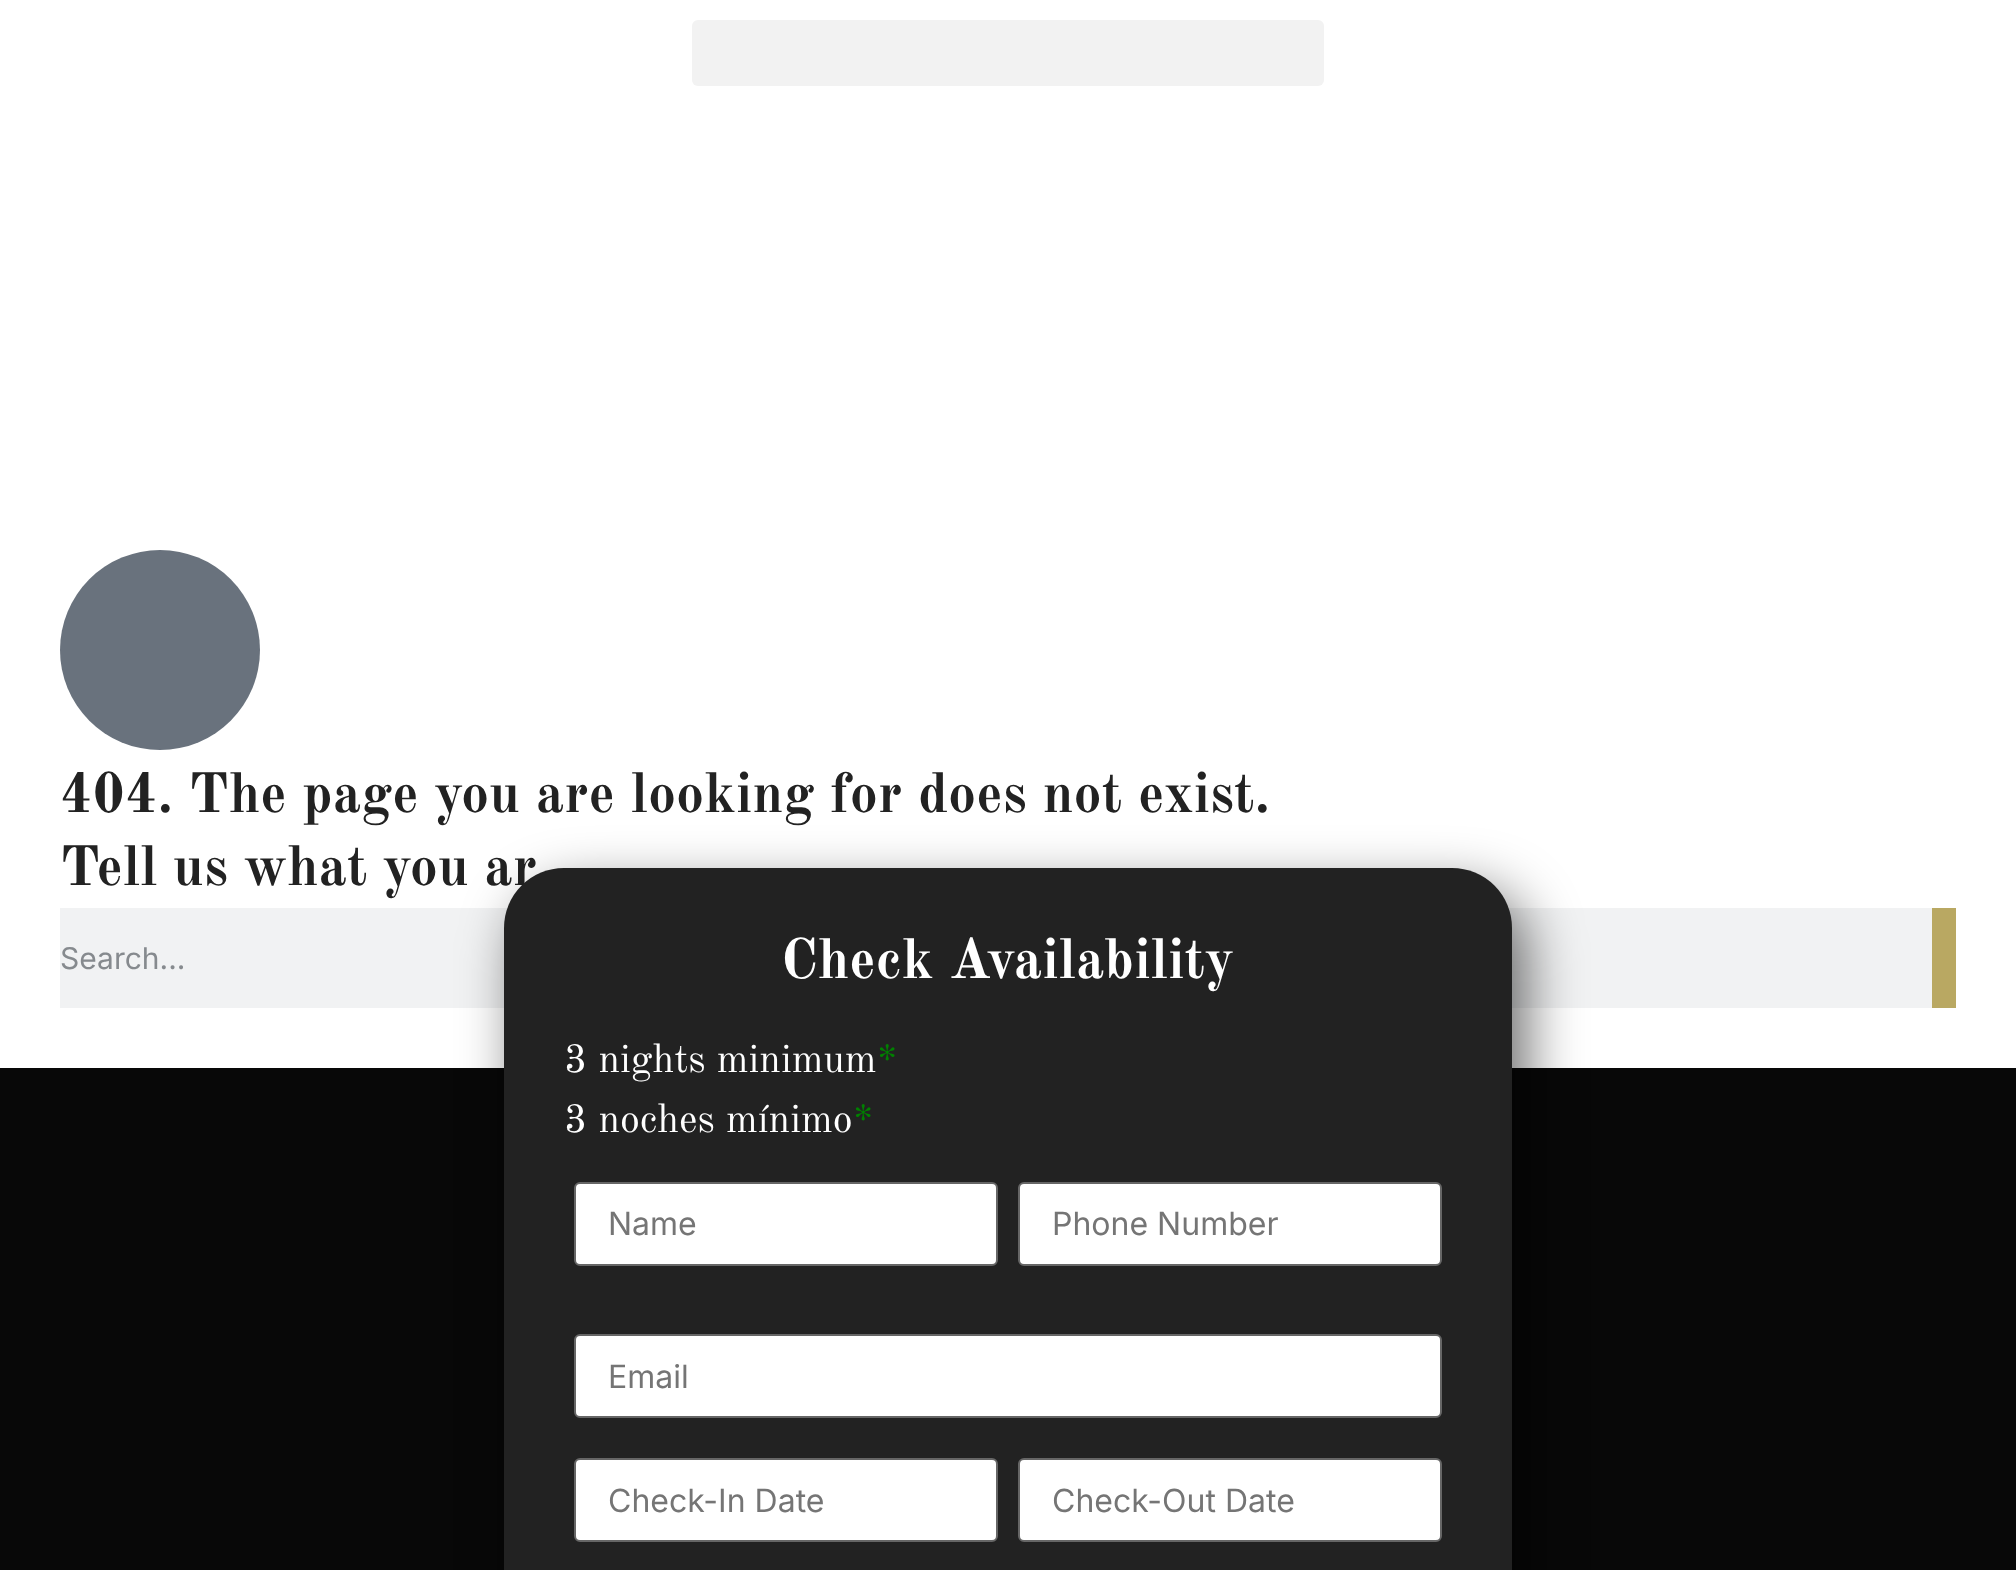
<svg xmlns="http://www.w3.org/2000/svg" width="2016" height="1570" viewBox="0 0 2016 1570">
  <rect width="100%" height="100%" fill="rgb(255,255,255)"/>
  <rect x="692" y="20" width="632" height="66" rx="6" fill="rgb(242,242,242)"/>
  <circle cx="160" cy="650" r="100" fill="rgb(105,114,125)"/>
  <g font-family="Old Standard TT" font-size="56" font-weight="bold" fill="rgb(34,34,34)">
    <text>
      <tspan x="60" y="812">404. The page you are looking for does not exist.</tspan>
      <tspan x="60" y="885">Tell us what you ar</tspan>
    </text>
  </g>
  <rect x="60" y="908" width="1872" height="100" fill="rgb(241,242,243)"/>
  <text x="60" y="969" font-family="Inter" font-size="30" fill="rgb(134,138,142)">Search...</text>
  <rect x="1932" y="908" width="24" height="100" fill="rgb(185,168,98)"/>
  <rect x="0" y="1068" width="2016" height="502" fill="rgb(8,8,8)"/>
  <rect x="518" y="890" width="1008" height="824" rx="60" fill="rgba(0,0,0,0.58)" filter="blur(28px)"/>
  <rect x="504" y="868" width="1008" height="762" rx="60" fill="rgb(34,34,34)"/>
  <text x="781" y="978" font-family="Old Standard TT" font-size="56" font-weight="bold" fill="rgb(255,255,255)">Check Availability</text>
  <text x="564" y="1072" font-family="Old Standard TT" font-size="40" fill="rgb(255,255,255)">3 nights minimum</text>
  <text x="877" y="1072" font-family="Old Standard TT" font-size="40" fill="rgb(0,128,0)">*</text>
  <text x="564" y="1132" font-family="Old Standard TT" font-size="40" fill="rgb(255,255,255)">3 noches mínimo</text>
  <text x="853" y="1132" font-family="Old Standard TT" font-size="40" fill="rgb(0,128,0)">*</text>
  <rect x="575" y="1183" width="422" height="82" rx="5" fill="rgb(255,255,255)" stroke="rgb(102,102,102)" stroke-width="2"/>
  <text x="608" y="1235" font-family="Inter" font-size="32" fill="rgb(117,117,117)">Name</text>
  <rect x="1019" y="1183" width="422" height="82" rx="5" fill="rgb(255,255,255)" stroke="rgb(102,102,102)" stroke-width="2"/>
  <text x="1052" y="1235" font-family="Inter" font-size="32" fill="rgb(117,117,117)">Phone Number</text>
  <rect x="575" y="1335" width="866" height="82" rx="5" fill="rgb(255,255,255)" stroke="rgb(102,102,102)" stroke-width="2"/>
  <text x="608" y="1388" font-family="Inter" font-size="32" fill="rgb(117,117,117)">Email</text>
  <rect x="575" y="1459" width="422" height="82" rx="5" fill="rgb(255,255,255)" stroke="rgb(102,102,102)" stroke-width="2"/>
  <text x="608" y="1512" font-family="Inter" font-size="32" fill="rgb(117,117,117)">Check-In Date</text>
  <rect x="1019" y="1459" width="422" height="82" rx="5" fill="rgb(255,255,255)" stroke="rgb(102,102,102)" stroke-width="2"/>
  <text x="1052" y="1512" font-family="Inter" font-size="32" fill="rgb(117,117,117)">Check-Out Date</text>
</svg>
